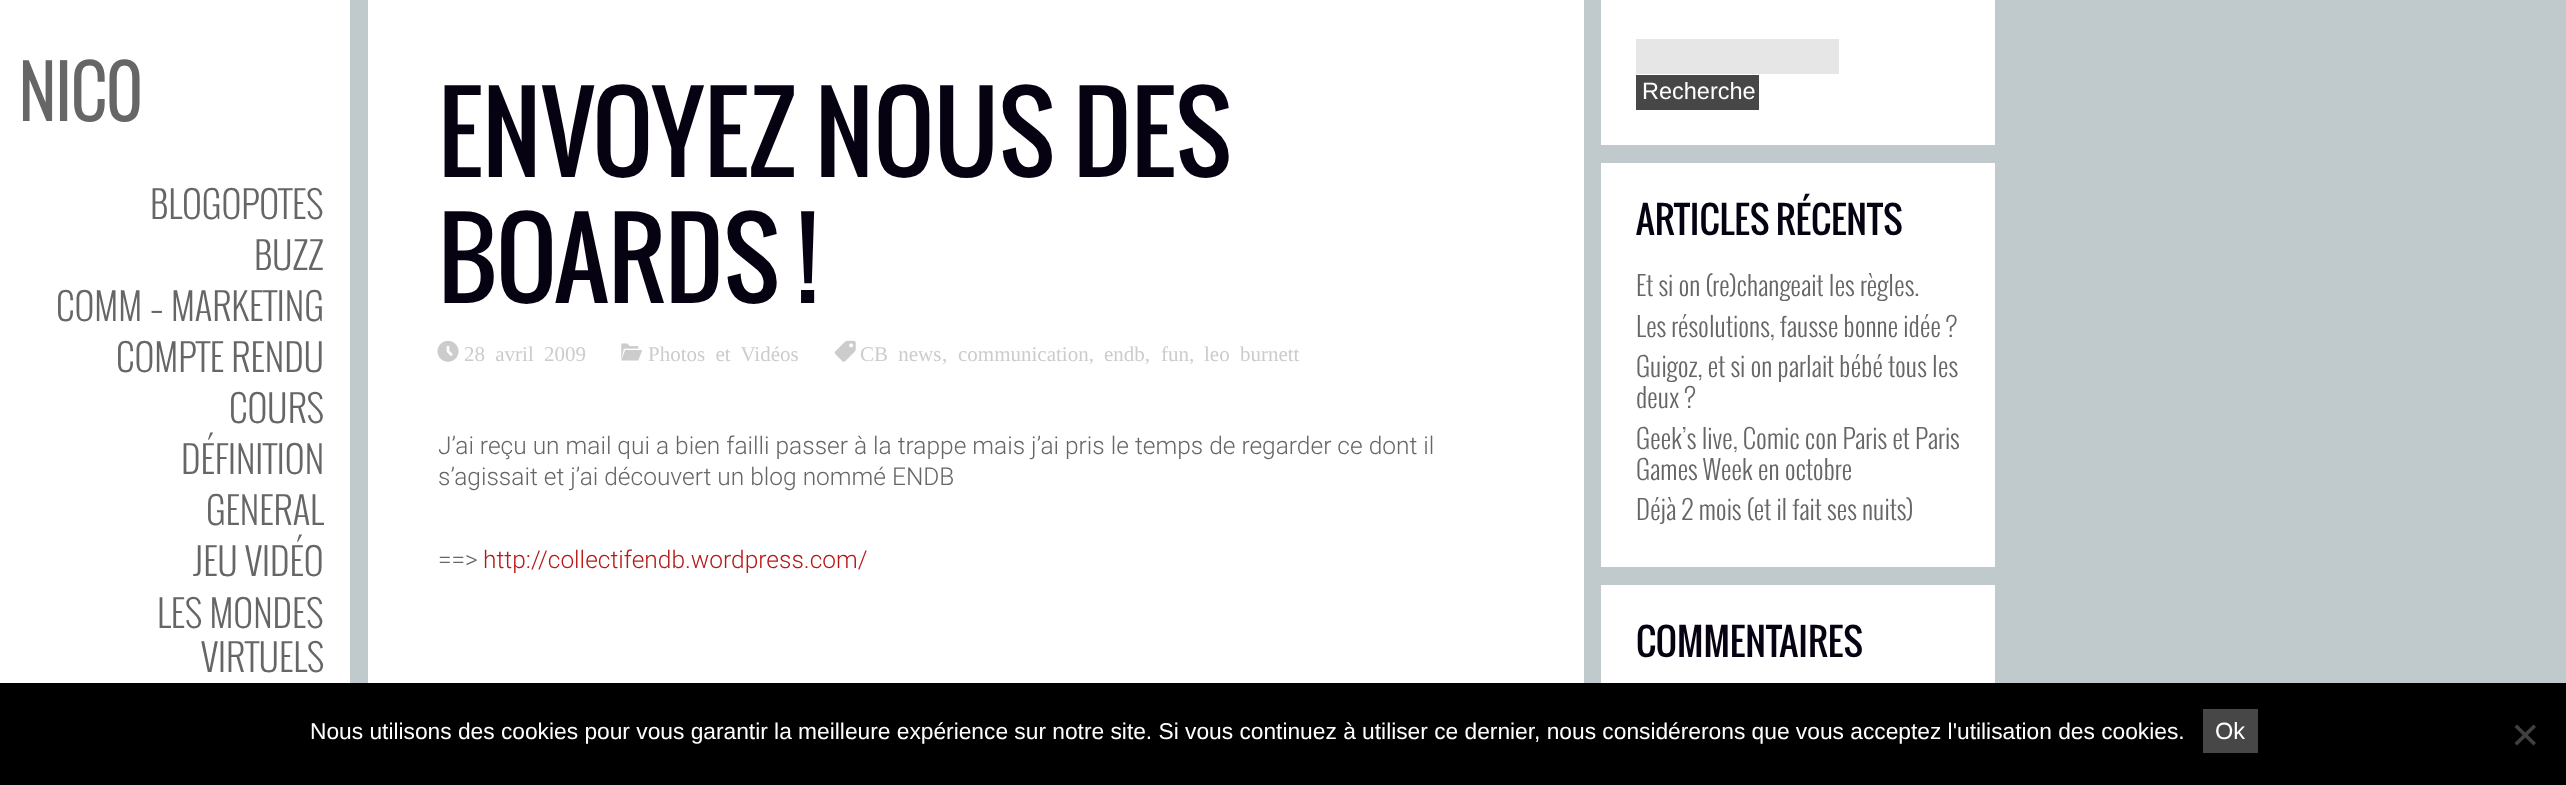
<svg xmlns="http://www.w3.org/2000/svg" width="2566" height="785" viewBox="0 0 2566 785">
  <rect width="100%" height="100%" fill="rgb(192,201,204)"/>
  <rect x="0" y="0" width="350" height="683" fill="rgb(255,255,255)"/>
  <text x="18" y="121" font-family="Oswald" font-size="70" font-weight="bold" fill="rgb(102,102,102)">NIC0</text>
  <g font-family="Oswald" font-size="36.75" font-weight="300" fill="rgb(102,102,102)">
    <text x="150" y="219">BLOGOPOTES</text>
    <text x="254" y="270">BUZZ</text>
    <text x="56" y="321">COMM – MARKETING</text>
    <text x="116" y="372">COMPTE RENDU</text>
    <text x="229" y="423">COURS</text>
    <text x="181" y="474">DÉFINITION</text>
    <text x="206" y="525">GENERAL</text>
    <text x="193" y="576">JEU VIDÉO</text>
    <text x="157" y="628">LES MONDES</text>
    <text x="201" y="672">VIRTUELS</text>
  </g>
  <rect x="368" y="0" width="1216" height="683" fill="rgb(255,255,255)"/>
  <g font-family="Oswald" font-size="105" fill="rgb(7,2,17)">
    <text>
      <tspan x="438" y="177">ENVOYEZ NOUS DES</tspan>
      <tspan x="438" y="303">BOARDS !</tspan>
    </text>
  </g>
  <image x="437" y="340" width="22" height="22" href="pic1.png"/>
  <text x="464" y="361" word-spacing="5" font-family="Liberation Serif" font-size="21" fill="rgb(204,204,204)">28 avril 2009</text>
  <image x="621" y="343" width="22" height="18" href="pic2.png"/>
  <text x="648" y="361" word-spacing="5" font-family="Liberation Serif" font-size="21" fill="rgb(204,204,204)">Photos et Vidéos</text>
  <image x="834" y="340" width="22" height="22" href="pic3.png"/>
  <g font-family="Liberation Serif" font-size="21" fill="rgb(204,204,204)">
    <text x="860" y="361" word-spacing="5">CB news</text>
    <text x="942" y="361">,</text>
    <text x="958" y="361">communication,</text>
    <text x="1104" y="361">endb,</text>
    <text x="1161" y="361">fun,</text>
    <text x="1204" y="361" word-spacing="5">leo burnett</text>
  </g>
  <g font-family="Roboto" font-size="24.5" font-weight="300" fill="rgb(102,102,102)">
    <text>
      <tspan x="438" y="454">J’ai reçu un mail qui a bien failli passer à la trappe mais j’ai pris le temps de regarder ce dont il</tspan>
      <tspan x="438" y="485">s’agissait et j’ai découvert un blog nommé ENDB</tspan>
    </text>
    <text x="438" y="568">==&gt;</text>
  </g>
  <text x="483" y="568" font-family="Roboto" font-size="24.5" font-weight="300" fill="rgb(183,23,23)">http://collectifendb.wordpress.com/</text>
  <rect x="1601" y="0" width="394" height="145" fill="rgb(255,255,255)"/>
  <rect x="1636" y="39" width="203" height="35" fill="rgb(230,230,230)"/>
  <rect x="1636" y="75" width="123" height="35" fill="rgb(71,71,71)"/>
  <text x="1642" y="99" font-family="Liberation Sans" font-size="23.5" fill="rgb(255,255,255)">Recherche</text>
  <rect x="1601" y="163" width="394" height="404" fill="rgb(255,255,255)"/>
  <text x="1636" y="235" font-family="Oswald" font-size="36.75" fill="rgb(7,2,17)">ARTICLES RÉCENTS</text>
  <g font-family="Oswald" font-size="26.25" font-weight="300" fill="rgb(102,102,102)">
    <text>
      <tspan x="1636" y="296">Et si on (re)changeait les règles.</tspan>
      <tspan x="1636" y="337">Les résolutions, fausse bonne idée ?</tspan>
      <tspan x="1636" y="377">Guigoz, et si on parlait bébé tous les</tspan>
      <tspan x="1636" y="408">deux ?</tspan>
      <tspan x="1636" y="449">Geek’s live, Comic con Paris et Paris</tspan>
      <tspan x="1636" y="480">Games Week en octobre</tspan>
      <tspan x="1636" y="520">Déjà 2 mois (et il fait ses nuits)</tspan>
    </text>
  </g>
  <rect x="1601" y="585" width="394" height="98" fill="rgb(255,255,255)"/>
  <text x="1636" y="657" font-family="Oswald" font-size="36.75" fill="rgb(7,2,17)">COMMENTAIRES</text>
  <rect x="0" y="683" width="2566" height="102" fill="rgb(0,0,0)"/>
  <text x="310" y="739" font-family="Liberation Sans" font-size="22.75" fill="rgb(255,255,255)">Nous utilisons des cookies pour vous garantir la meilleure expérience sur notre site. Si vous continuez à utiliser ce dernier, nous considérerons que vous acceptez l'utilisation des cookies.</text>
  <rect x="2203" y="709" width="55" height="44" fill="rgb(71,71,71)"/>
  <text x="2215" y="739" font-family="Liberation Sans" font-size="23.5" fill="rgb(255,255,255)">Ok</text>
  <path d="M2533.5 724.5L2536 727L2517 745.5L2514.5 743Z" fill="rgb(64,64,64)"/>
  <path d="M2514.5 727L2517 724.5L2536 743L2533.5 745.5Z" fill="rgb(64,64,64)"/>
</svg>
